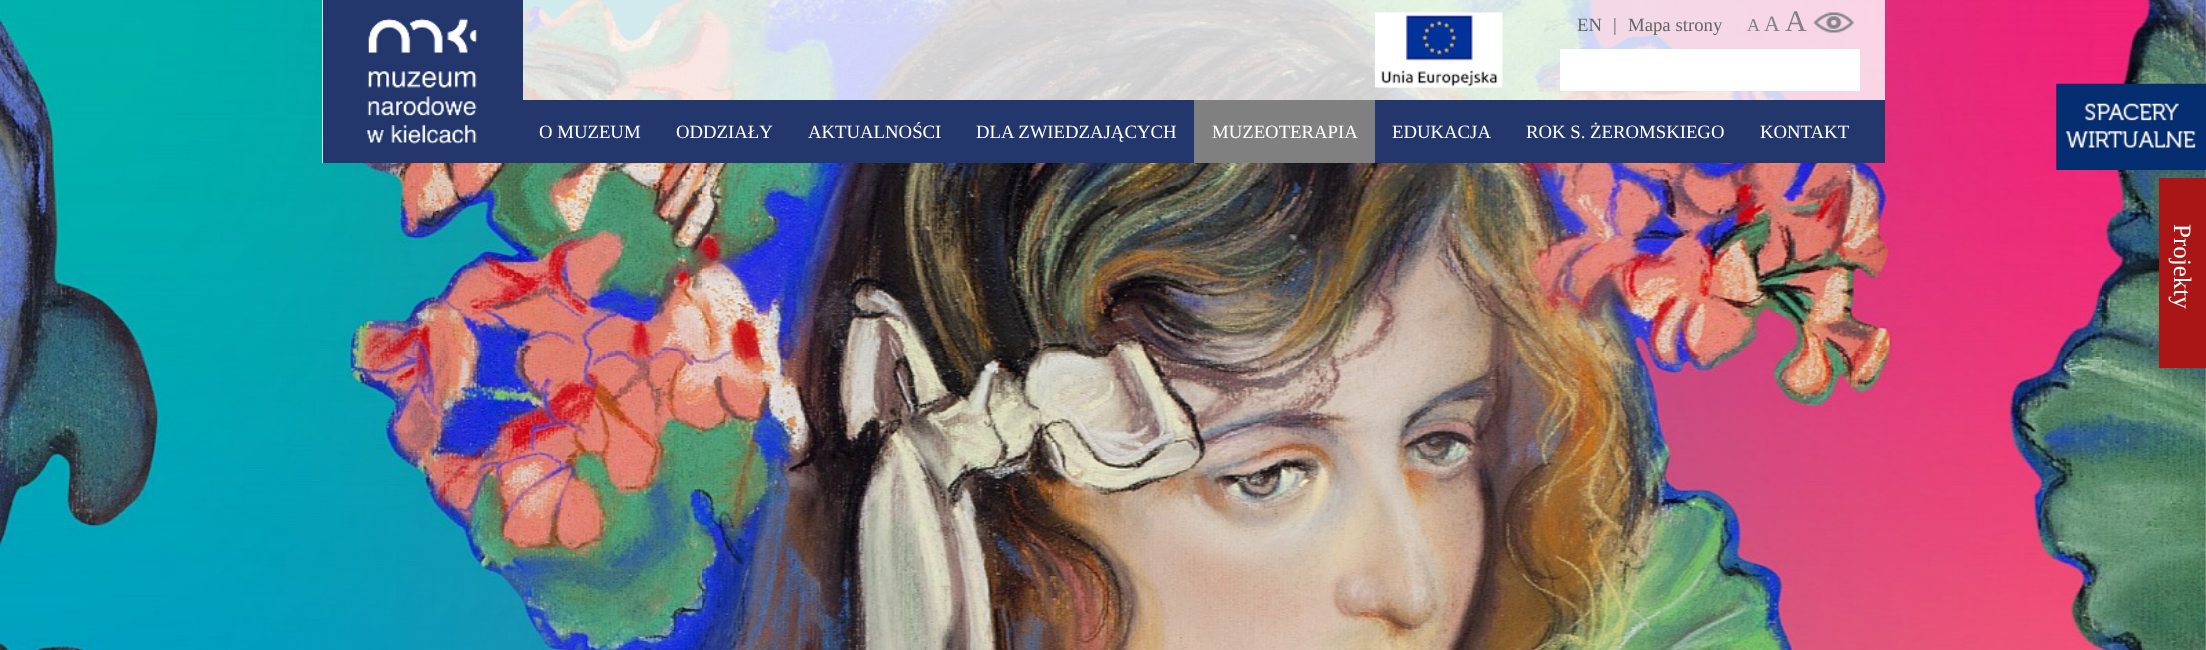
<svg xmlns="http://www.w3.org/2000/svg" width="2206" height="650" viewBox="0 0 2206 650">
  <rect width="100%" height="100%" fill="rgb(255,255,255)"/>
  <image x="0" y="0" width="2206" height="650" href="pic1.png"/>
  <rect x="322" y="0" width="1563" height="163" fill="rgba(255,255,255,0.8)"/>
  <text x="1747" y="31" font-family="Liberation Serif" font-size="18" fill="rgb(129,129,129)">A</text>
  <text x="1764" y="31" font-family="Liberation Serif" font-size="22" fill="rgb(129,129,129)">A</text>
  <text x="1785" y="31" font-family="Liberation Serif" font-size="30" fill="rgb(129,129,129)">A</text>
  <image x="1813" y="12" width="41" height="21" href="pic2.png"/>
  <rect x="323" y="0" width="200" height="163" fill="rgb(35,55,108)"/>
  <image x="366" y="18" width="111" height="126" href="pic3.png"/>
  <image x="1375" y="12" width="128" height="76" href="pic4.png"/>
  <g font-family="Liberation Serif" font-size="18.75" fill="rgb(102,102,102)">
    <text x="1577" y="31">EN</text>
    <text x="1613" y="31">|</text>
    <text x="1628" y="31">Mapa strony</text>
  </g>
  <rect x="1560" y="49" width="300" height="42" fill="rgb(255,255,255)"/>
  <rect x="523" y="100" width="1362" height="63" fill="rgb(35,55,108)"/>
  <g font-family="Liberation Serif" font-size="18.75" fill="rgb(255,255,255)">
    <text x="539" y="138">O MUZEUM</text>
    <text x="676" y="138">ODDZIAŁY</text>
    <text x="808" y="138">AKTUALNOŚCI</text>
    <text x="976" y="138">DLA ZWIEDZAJĄCYCH</text>
  </g>
  <rect x="1194" y="100" width="181" height="63" fill="rgb(128,128,128)"/>
  <g font-family="Liberation Serif" font-size="18.75" fill="rgb(255,255,255)">
    <text x="1212" y="138">MUZEOTERAPIA</text>
    <text x="1392" y="138">EDUKACJA</text>
    <text x="1526" y="138">ROK S. ŻEROMSKIEGO</text>
    <text x="1760" y="138">KONTAKT</text>
  </g>
  <image x="2056" y="83" width="150" height="87" href="pic5.png"/>
  <rect x="2159" y="178" width="47" height="190" fill="rgb(170,21,21)"/>
  <text x="2174" y="224" transform="rotate(90 2174 224)" font-family="Liberation Serif" font-size="25" fill="rgb(255,255,255)">Projekty</text>
</svg>
